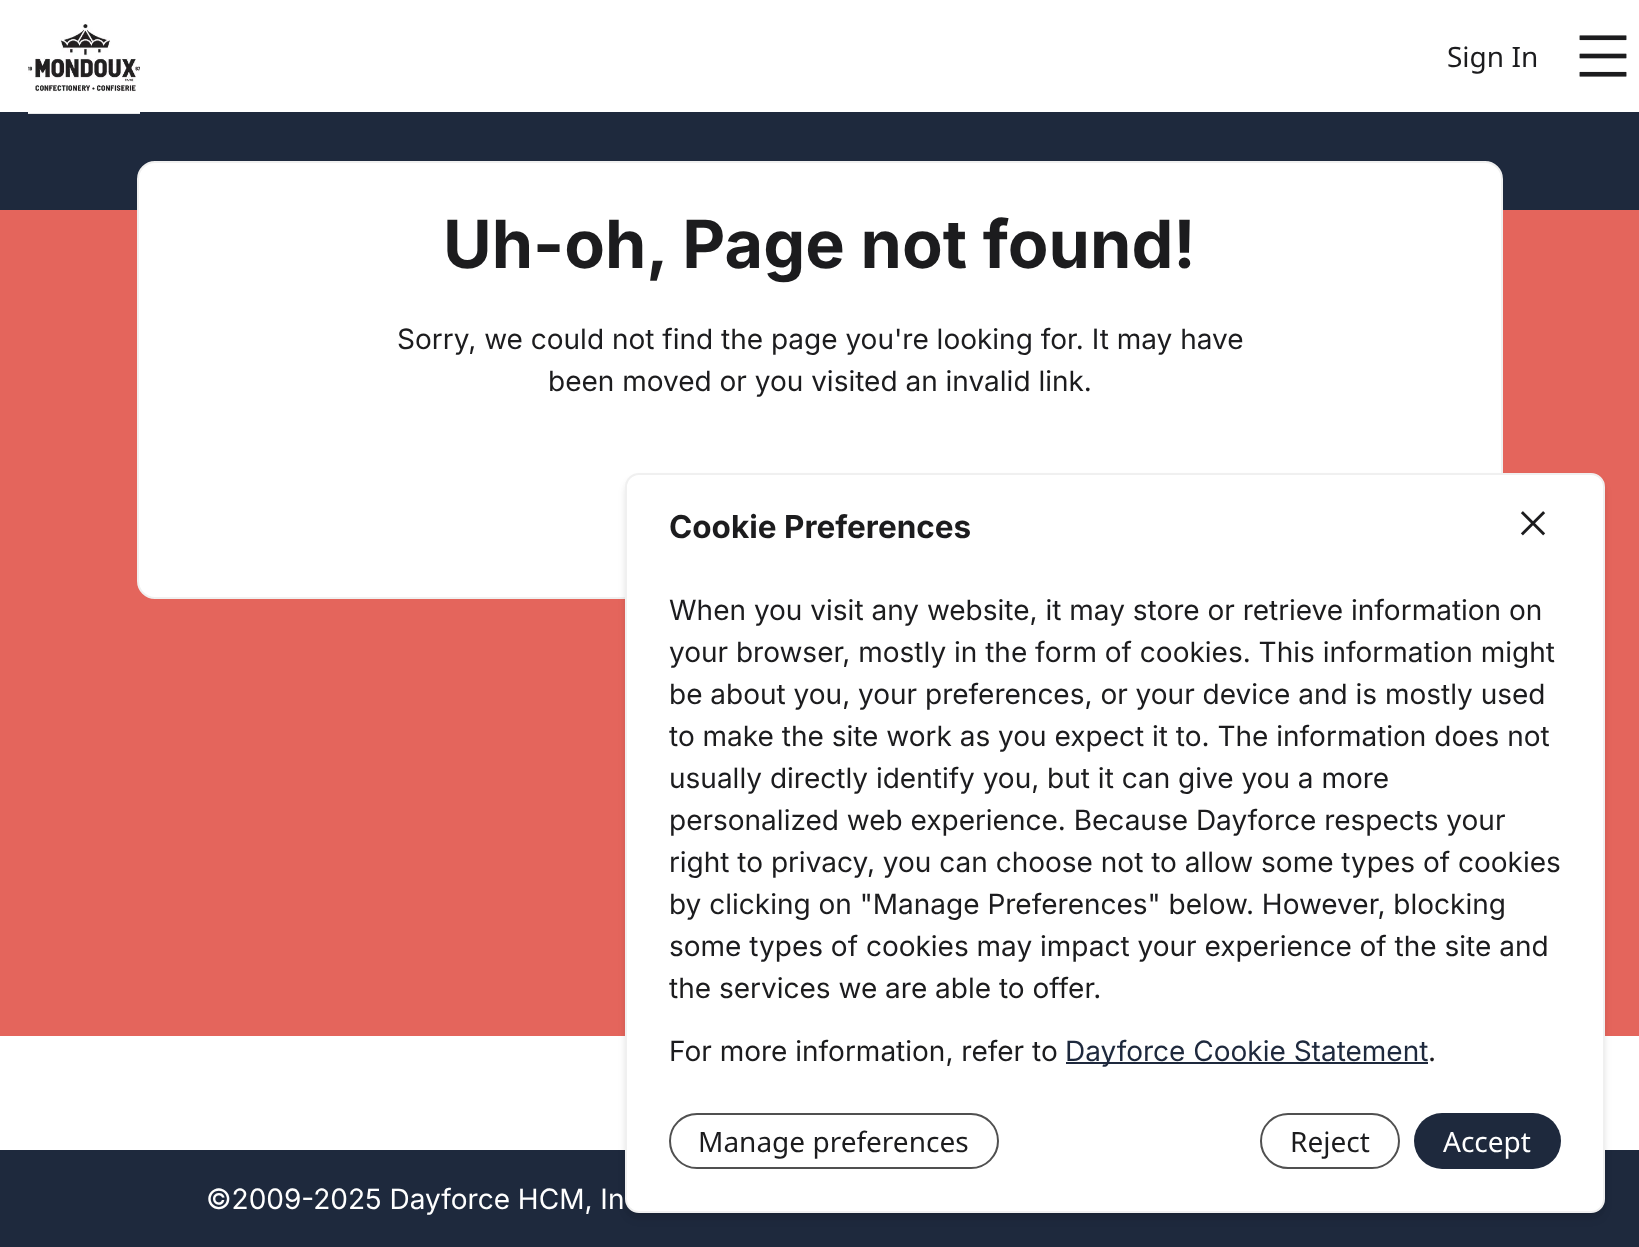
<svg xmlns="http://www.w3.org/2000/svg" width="1639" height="1247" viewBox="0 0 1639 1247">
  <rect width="100%" height="100%" fill="rgb(255,255,255)"/>
  <rect x="0" y="112" width="1639" height="98" fill="rgb(30,41,61)"/>
  <image x="28" y="24" width="112" height="90" href="pic1.png"/>
  <text x="1447" y="67" font-family="Noto Sans" font-size="28" fill="rgb(28,28,30)">Sign In</text>
  <image x="1579" y="35" width="48" height="42" href="pic2.png"/>
  <rect x="0" y="210" width="1639" height="826" fill="rgb(228,101,92)"/>
  <rect x="138" y="162" width="1364" height="436" rx="17" fill="rgb(255,255,255)" stroke="rgb(240,240,240)" stroke-width="2"/>
  <text x="443" y="268" font-family="Inter" font-size="66.5" font-weight="bold" fill="rgb(28,28,30)">Uh-oh, Page not found!</text>
  <g font-family="Inter" font-size="28" fill="rgb(28,28,30)">
    <text x="397" y="349">Sorry, we could not find the page you're looking for. It may have</text>
    <text x="548" y="391">been moved or you visited an invalid link.</text>
  </g>
  <rect x="0" y="1150" width="1639" height="97" fill="rgb(30,41,61)"/>
  <text x="206" y="1209" font-family="Inter" font-size="28" fill="rgb(255,255,255)">©2009-2025 Dayforce HCM, In</text>
  <rect x="628" y="480" width="973" height="733" rx="11" fill="rgba(0,0,0,0.1)" filter="blur(3.5px)"/>
  <rect x="627" y="481" width="976" height="737" rx="12" fill="rgba(0,0,0,0.1)" filter="blur(5px)"/>
  <rect x="626" y="474" width="978" height="738" rx="13" fill="rgb(255,255,255)" stroke="rgb(240,240,240)" stroke-width="2"/>
  <text x="669" y="538" font-family="Inter" font-size="31.5" font-weight="bold" fill="rgb(28,28,30)">Cookie Preferences</text>
  <image x="1520" y="511" width="26" height="25" href="pic3.png"/>
  <g font-family="Inter" font-size="28" fill="rgb(28,28,30)">
    <text>
      <tspan x="669" y="620">When you visit any website, it may store or retrieve information on</tspan>
      <tspan x="669" y="662">your browser, mostly in the form of cookies. This information might</tspan>
      <tspan x="669" y="704">be about you, your preferences, or your device and is mostly used</tspan>
      <tspan x="669" y="746">to make the site work as you expect it to. The information does not</tspan>
      <tspan x="669" y="788">usually directly identify you, but it can give you a more</tspan>
      <tspan x="669" y="830">personalized web experience. Because Dayforce respects your</tspan>
      <tspan x="669" y="872">right to privacy, you can choose not to allow some types of cookies</tspan>
      <tspan x="669" y="914">by clicking on "Manage Preferences" below. However, blocking</tspan>
      <tspan x="669" y="956">some types of cookies may impact your experience of the site and</tspan>
      <tspan x="669" y="998">the services we are able to offer.</tspan>
    </text>
    <text x="669" y="1061">For more information, refer to</text>
  </g>
  <rect x="1066" y="1062" width="362" height="2" fill="rgb(30,41,61)"/>
  <text x="1065" y="1061" font-family="Inter" font-size="28" fill="rgb(30,41,61)">Dayforce Cookie Statement</text>
  <text x="1428" y="1061" font-family="Inter" font-size="28" fill="rgb(28,28,30)">.</text>
  <rect x="670" y="1114" width="328" height="54" rx="27" fill="none" stroke="rgb(80,80,80)" stroke-width="2"/>
  <text x="698" y="1152" font-family="Noto Sans" font-size="28" fill="rgb(28,28,30)">Manage preferences</text>
  <rect x="1261" y="1114" width="138" height="54" rx="27" fill="none" stroke="rgb(80,80,80)" stroke-width="2"/>
  <text x="1290" y="1152" font-family="Noto Sans" font-size="28" fill="rgb(28,28,30)">Reject</text>
  <rect x="1414" y="1113" width="147" height="56" rx="28" fill="rgb(30,41,61)"/>
  <text x="1443" y="1152" font-family="Noto Sans" font-size="28" fill="rgb(255,255,255)">Accept</text>
</svg>
